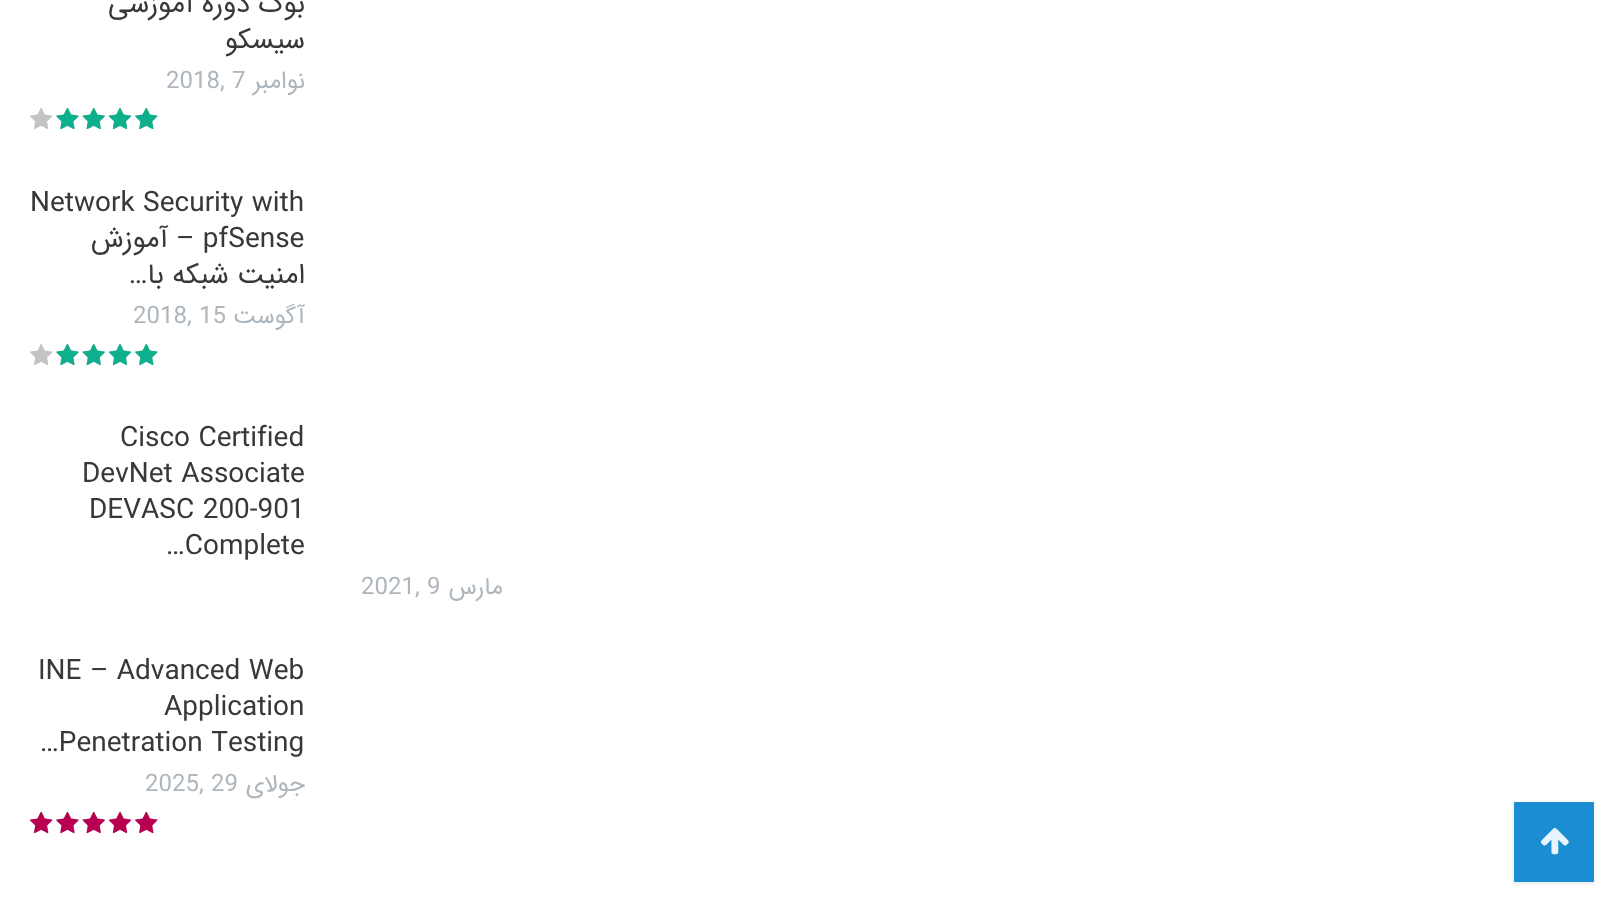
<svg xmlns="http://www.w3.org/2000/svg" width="1614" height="897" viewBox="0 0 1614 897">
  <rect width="100%" height="100%" fill="rgb(255,255,255)"/>
  <g font-family="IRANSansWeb" font-size="28" direction="rtl" fill="rgb(56,56,56)">
    <text>
      <tspan x="305" y="12">بوک دوره آموزشی</tspan>
      <tspan x="305" y="48">سیسکو</tspan>
    </text>
  </g>
  <text x="166" y="88" font-family="IRANSansWeb" font-size="24" fill="rgb(173,181,189)">2018, 7</text>
  <text x="305" y="88" font-family="IRANSansWeb" font-size="24" direction="rtl" fill="rgb(173,181,189)">نوامبر</text>
  <image x="30" y="108" width="128" height="21" href="pic2.png"/>
  <image x="56" y="107" width="102" height="23" href="pic1.png"/>
  <text x="30" y="211" font-family="IRANSansWeb" font-size="28" fill="rgb(56,56,56)">Network Security with</text>
  <text x="168" y="247" font-family="IRANSansWeb" font-size="28" direction="rtl" fill="rgb(56,56,56)">آموزش</text>
  <text x="176" y="247" font-family="IRANSansWeb" font-size="28" fill="rgb(56,56,56)">– pfSense</text>
  <text x="305" y="283" font-family="IRANSansWeb" font-size="28" direction="rtl" fill="rgb(56,56,56)">امنیت شبکه با…</text>
  <text x="133" y="323" font-family="IRANSansWeb" font-size="24" fill="rgb(173,181,189)">2018, 15</text>
  <text x="305" y="323" font-family="IRANSansWeb" font-size="24" direction="rtl" fill="rgb(173,181,189)">آگوست</text>
  <image x="30" y="344" width="128" height="21" href="pic2.png"/>
  <image x="56" y="343" width="102" height="23" href="pic1.png"/>
  <g font-family="IRANSansWeb" font-size="28" fill="rgb(56,56,56)">
    <text x="120" y="446">Cisco Certified</text>
    <text x="82" y="482">DevNet Associate</text>
    <text x="89" y="518">DEVASC 200-901</text>
    <text x="166" y="554">…Complete</text>
  </g>
  <text x="361" y="594" font-family="IRANSansWeb" font-size="24" fill="rgb(173,181,189)">2021, 9</text>
  <text x="503" y="594" font-family="IRANSansWeb" font-size="24" direction="rtl" fill="rgb(173,181,189)">مارس</text>
  <g font-family="IRANSansWeb" font-size="28" fill="rgb(56,56,56)">
    <text x="38" y="679">INE – Advanced Web</text>
    <text x="164" y="715">Application</text>
    <text x="40" y="751">…Penetration Testing</text>
  </g>
  <text x="145" y="791" font-family="IRANSansWeb" font-size="24" fill="rgb(173,181,189)">2025, 29</text>
  <text x="305" y="791" font-family="IRANSansWeb" font-size="24" direction="rtl" fill="rgb(173,181,189)">جولای</text>
  <image x="30" y="812" width="128" height="21" href="pic2.png"/>
  <image x="30" y="811" width="128" height="23" href="pic3.png"/>
  <rect x="1514" y="804" width="80" height="80" fill="rgba(26,26,26,0.09)" filter="blur(2px)"/>
  <rect x="1514" y="802" width="80" height="80" fill="rgb(26,141,211)"/>
  <image x="1541" y="828" width="28" height="27" href="pic4.png"/>
</svg>
